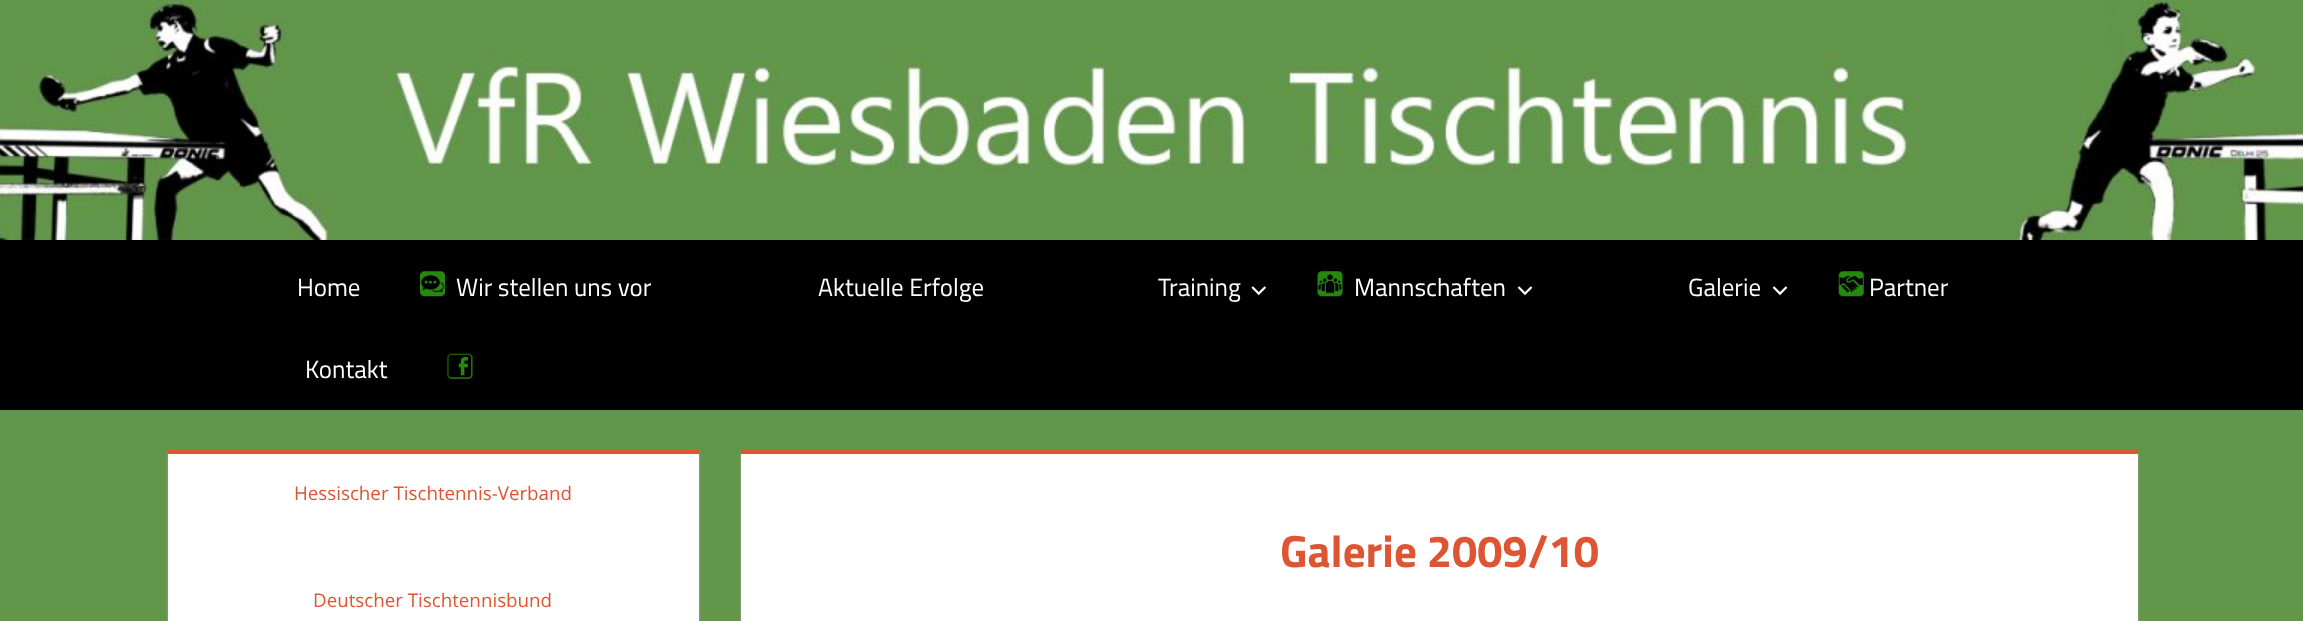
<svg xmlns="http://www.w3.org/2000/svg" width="2303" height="621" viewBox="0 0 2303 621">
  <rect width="100%" height="100%" fill="rgb(98,150,74)"/>
  <image x="0" y="0" width="2303" height="240" href="pic1.png"/>
  <rect x="0" y="240" width="2303" height="170" fill="rgb(0,0,0)"/>
  <text x="297" y="296" font-family="Titillium Web" font-size="25" fill="rgb(255,255,255)">Home</text>
  <image x="420" y="271" width="25" height="26" href="pic2.png"/>
  <g font-family="Titillium Web" font-size="25" fill="rgb(255,255,255)">
    <text x="456" y="296">Wir stellen uns vor</text>
    <text x="818" y="296">Aktuelle Erfolge</text>
    <text x="1158" y="296">Training</text>
  </g>
  <image x="1251" y="286" width="15" height="10" href="pic3.png"/>
  <image x="1317" y="271" width="26" height="26" href="pic4.png"/>
  <text x="1354" y="296" font-family="Titillium Web" font-size="25" fill="rgb(255,255,255)">Mannschaften</text>
  <image x="1517" y="286" width="16" height="9" href="pic5.png"/>
  <text x="1688" y="296" font-family="Titillium Web" font-size="25" fill="rgb(255,255,255)">Galerie</text>
  <image x="1772" y="286" width="16" height="10" href="pic6.png"/>
  <image x="1838" y="271" width="26" height="26" href="pic7.png"/>
  <g font-family="Titillium Web" font-size="25" fill="rgb(255,255,255)">
    <text x="1869" y="296">Partner</text>
    <text x="305" y="378">Kontakt</text>
  </g>
  <image x="447" y="353" width="26" height="26" href="pic8.png"/>
  <rect x="168" y="453" width="531" height="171" fill="rgb(170,170,170)" filter="blur(1px)"/>
  <rect x="168" y="454" width="531" height="167" fill="rgb(255,255,255)"/>
  <rect x="168" y="450" width="531" height="4" fill="rgb(221,85,51)"/>
  <g font-family="Open Sans" font-size="18.75" fill="rgb(221,85,51)">
    <text x="294" y="500">Hessischer Tischtennis-Verband</text>
    <text x="313" y="607">Deutscher Tischtennisbund</text>
  </g>
  <rect x="741" y="453" width="1397" height="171" fill="rgb(170,170,170)" filter="blur(1px)"/>
  <rect x="741" y="454" width="1397" height="167" fill="rgb(255,255,255)"/>
  <rect x="741" y="450" width="1397" height="4" fill="rgb(221,85,51)"/>
  <text x="1280" y="567" font-family="Titillium Web" font-size="45" font-weight="bold" fill="rgb(221,85,51)">Galerie 2009/10</text>
</svg>
